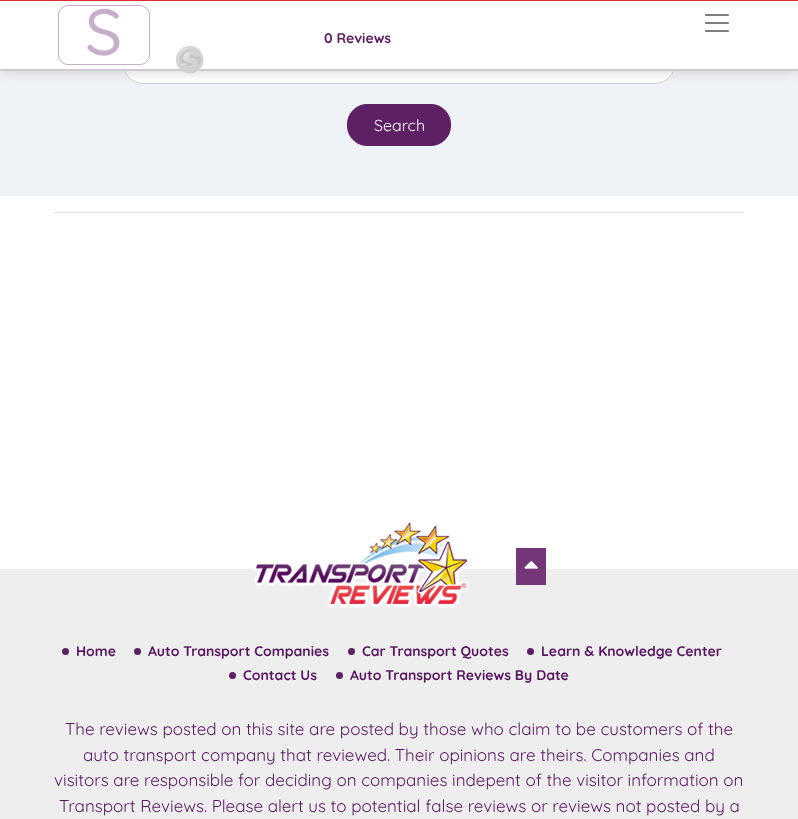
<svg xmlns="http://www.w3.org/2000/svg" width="798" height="819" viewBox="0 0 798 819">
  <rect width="100%" height="100%" fill="rgb(255,255,255)"/>
  <rect x="0" y="71" width="798" height="125" fill="rgb(239,242,246)"/>
  <rect x="123.5" y="41.5" width="551" height="42" rx="19.5" fill="rgb(255,255,255)" stroke="rgb(206,212,218)"/>
  <rect x="0" y="0" width="798" height="71" fill="rgb(204,204,204)" filter="blur(6.5px)"/>
  <rect x="0" y="1" width="798" height="68" fill="rgb(255,255,255)"/>
  <rect x="0" y="0" width="798" height="1" fill="rgb(229,42,60)"/>
  <rect x="0" y="69" width="798" height="2" fill="rgb(204,204,204)"/>
  <rect x="58.5" y="5.5" width="91" height="59" rx="9.5" fill="none" stroke="rgb(199,174,202)"/>
  <text x="85" y="55" font-family="Quicksand" font-size="65" font-weight="500" fill="rgb(199,174,202)">S</text>
  <image x="176" y="46" width="28" height="28" href="pic1.png"/>
  <image x="705" y="14" width="24" height="18" href="pic2.png"/>
  <text x="324" y="43" font-family="Quicksand" font-size="14" font-weight="bold" fill="rgb(94,32,101)">0 Reviews</text>
  <rect x="347.5" y="104.5" width="103" height="41" rx="19.5" fill="rgb(94,32,101)" stroke="rgb(94,32,101)"/>
  <text x="374" y="131" font-family="Quicksand" font-size="16" fill="rgb(255,255,255)">Search</text>
  <rect x="54" y="212" width="690" height="1" fill="rgb(230,230,230)"/>
  <rect x="0" y="569" width="798" height="250" fill="rgb(238,238,238)"/>
  <image x="253" y="523" width="216" height="85" href="pic3.png"/>
  <rect x="516" y="548" width="30" height="37" fill="rgb(116,54,121)"/>
  <image x="524" y="561" width="14" height="8" href="pic4.png"/>
  <circle cx="65.5" cy="651.5" r="3.5" fill="rgb(93,32,100)"/>
  <text x="76" y="656" font-family="Quicksand" font-size="14" font-weight="bold" fill="rgb(88,22,96)">Home</text>
  <circle cx="137.5" cy="651.5" r="3.5" fill="rgb(93,32,100)"/>
  <text x="148" y="656" font-family="Quicksand" font-size="14" font-weight="bold" fill="rgb(88,22,96)">Auto Transport Companies</text>
  <circle cx="351.5" cy="651.5" r="3.5" fill="rgb(93,32,100)"/>
  <text x="362" y="656" font-family="Quicksand" font-size="14" font-weight="bold" fill="rgb(88,22,96)">Car Transport Quotes</text>
  <circle cx="530.5" cy="651.5" r="3.5" fill="rgb(93,32,100)"/>
  <text x="541" y="656" font-family="Quicksand" font-size="14" font-weight="bold" fill="rgb(88,22,96)">Learn &amp; Knowledge Center</text>
  <circle cx="232.5" cy="675.5" r="3.5" fill="rgb(93,32,100)"/>
  <text x="243" y="680" font-family="Quicksand" font-size="14" font-weight="bold" fill="rgb(88,22,96)">Contact Us</text>
  <circle cx="339.5" cy="675.5" r="3.5" fill="rgb(93,32,100)"/>
  <text x="350" y="680" font-family="Quicksand" font-size="14" font-weight="bold" fill="rgb(88,22,96)">Auto Transport Reviews By Date</text>
  <g font-family="Quicksand" font-size="17" fill="rgb(88,22,96)">
    <text x="65" y="735">The reviews posted on this site are posted by those who claim to be customers of the</text>
    <text x="83" y="761">auto transport company that reviewed. Their opinions are theirs. Companies and</text>
    <text x="54" y="786">visitors are responsible for deciding on companies indepent of the visitor information on</text>
    <text x="59" y="812">Transport Reviews. Please alert us to potential false reviews or reviews not posted by a</text>
  </g>
</svg>
